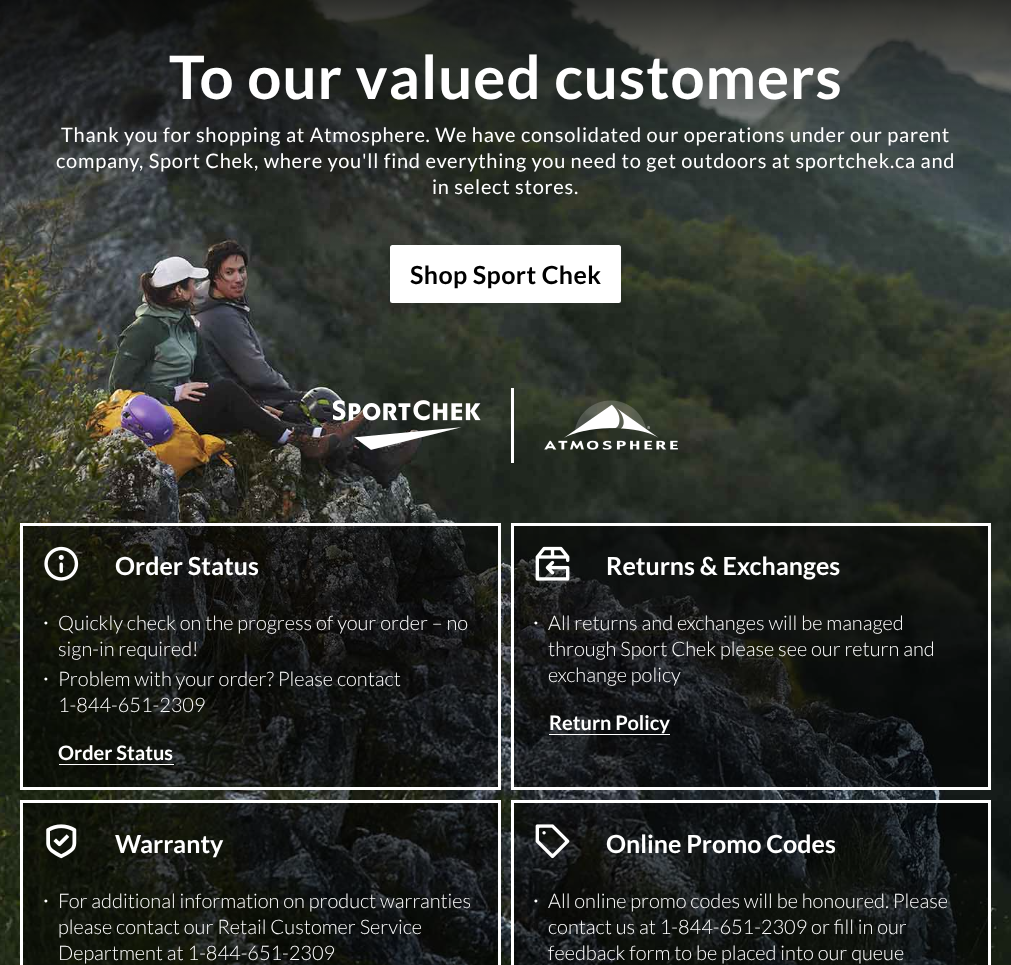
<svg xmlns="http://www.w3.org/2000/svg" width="1011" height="965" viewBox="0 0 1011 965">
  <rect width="100%" height="100%" fill="rgb(255,255,255)"/>
  <image x="0" y="0" width="1011" height="965" href="pic1.png"/>
  <text x="169" y="99" font-family="Lato" font-size="60" font-weight="bold" letter-spacing="1" fill="rgb(255,255,255)">To our valued customers</text>
  <g font-family="Lato" font-size="20" letter-spacing="0.75" fill="rgb(255,255,255)">
    <text x="61" y="142">Thank you for shopping at Atmosphere. We have consolidated our operations under our parent</text>
    <text x="56" y="168">company, Sport Chek, where you'll find everything you need to get outdoors at sportchek.ca and</text>
    <text x="432" y="194">in select stores.</text>
  </g>
  <rect x="390" y="245" width="231" height="58" rx="2.5" fill="rgb(255,255,255)"/>
  <text x="410" y="284" font-family="Lato" font-size="25" font-weight="bold" letter-spacing="0.4" fill="rgb(0,0,0)">Shop Sport Chek</text>
  <image x="333" y="400" width="148" height="50" href="pic2.png"/>
  <rect x="511" y="388" width="3" height="75" fill="rgb(255,255,255)"/>
  <image x="544" y="400" width="134" height="50" href="pic3.png"/>
  <rect x="21.5" y="524.5" width="478" height="264" fill="rgba(0,0,0,0.55)" stroke="rgb(255,255,255)" stroke-width="3"/>
  <image x="44" y="546" width="35" height="35" href="pic4.png"/>
  <text x="115" y="575" font-family="Lato" font-size="25" font-weight="bold" fill="rgb(255,255,255)">Order Status</text>
  <text x="43" y="626" font-family="Lato" font-size="10" font-weight="300" fill="rgb(255,255,255)">•</text>
  <g font-family="Lato" font-size="20" font-weight="300" fill="rgb(255,255,255)">
    <text>
      <tspan x="58" y="630">Quickly check on the progress of your order – no</tspan>
      <tspan x="58" y="656">sign-in required!</tspan>
    </text>
  </g>
  <text x="43" y="682" font-family="Lato" font-size="10" font-weight="300" fill="rgb(255,255,255)">•</text>
  <g font-family="Lato" font-size="20" font-weight="300" fill="rgb(255,255,255)">
    <text>
      <tspan x="58" y="686">Problem with your order? Please contact</tspan>
      <tspan x="58" y="712">1-844-651-2309</tspan>
    </text>
  </g>
  <text x="58" y="760" font-family="Lato" font-size="20" font-weight="bold" fill="rgb(255,255,255)">Order Status</text>
  <rect x="59" y="764" width="115" height="1" fill="rgb(255,255,255)"/>
  <rect x="512.5" y="524.5" width="477" height="264" fill="rgba(0,0,0,0.55)" stroke="rgb(255,255,255)" stroke-width="3"/>
  <image x="535" y="546" width="35" height="35" href="pic5.png"/>
  <text x="606" y="575" font-family="Lato" font-size="25" font-weight="bold" fill="rgb(255,255,255)">Returns &amp; Exchanges</text>
  <text x="533" y="626" font-family="Lato" font-size="10" font-weight="300" fill="rgb(255,255,255)">•</text>
  <g font-family="Lato" font-size="20" font-weight="300" fill="rgb(255,255,255)">
    <text>
      <tspan x="548" y="630">All returns and exchanges will be managed</tspan>
      <tspan x="548" y="656">through Sport Chek please see our return and</tspan>
      <tspan x="548" y="682">exchange policy</tspan>
    </text>
  </g>
  <text x="549" y="730" font-family="Lato" font-size="20" font-weight="bold" fill="rgb(255,255,255)">Return Policy</text>
  <rect x="549" y="734" width="121" height="1" fill="rgb(255,255,255)"/>
  <rect x="21.5" y="801.5" width="478" height="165" fill="rgba(0,0,0,0.55)" stroke="rgb(255,255,255)" stroke-width="3"/>
  <image x="46" y="824" width="31" height="35" href="pic6.png"/>
  <text x="115" y="853" font-family="Lato" font-size="25" font-weight="bold" fill="rgb(255,255,255)">Warranty</text>
  <text x="43" y="904" font-family="Lato" font-size="10" font-weight="300" fill="rgb(255,255,255)">•</text>
  <g font-family="Lato" font-size="20" font-weight="300" fill="rgb(255,255,255)">
    <text>
      <tspan x="58" y="908">For additional information on product warranties</tspan>
      <tspan x="58" y="934">please contact our Retail Customer Service</tspan>
      <tspan x="58" y="960">Department at 1-844-651-2309</tspan>
    </text>
  </g>
  <rect x="512.5" y="801.5" width="477" height="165" fill="rgba(0,0,0,0.55)" stroke="rgb(255,255,255)" stroke-width="3"/>
  <image x="535" y="824" width="35" height="35" href="pic7.png"/>
  <text x="606" y="853" font-family="Lato" font-size="25" font-weight="bold" fill="rgb(255,255,255)">Online Promo Codes</text>
  <text x="533" y="904" font-family="Lato" font-size="10" font-weight="300" fill="rgb(255,255,255)">•</text>
  <g font-family="Lato" font-size="20" font-weight="300" fill="rgb(255,255,255)">
    <text>
      <tspan x="548" y="908">All online promo codes will be honoured. Please</tspan>
      <tspan x="548" y="934">contact us at 1-844-651-2309 or fill in our</tspan>
      <tspan x="548" y="960">feedback form to be placed into our queue</tspan>
    </text>
  </g>
</svg>
